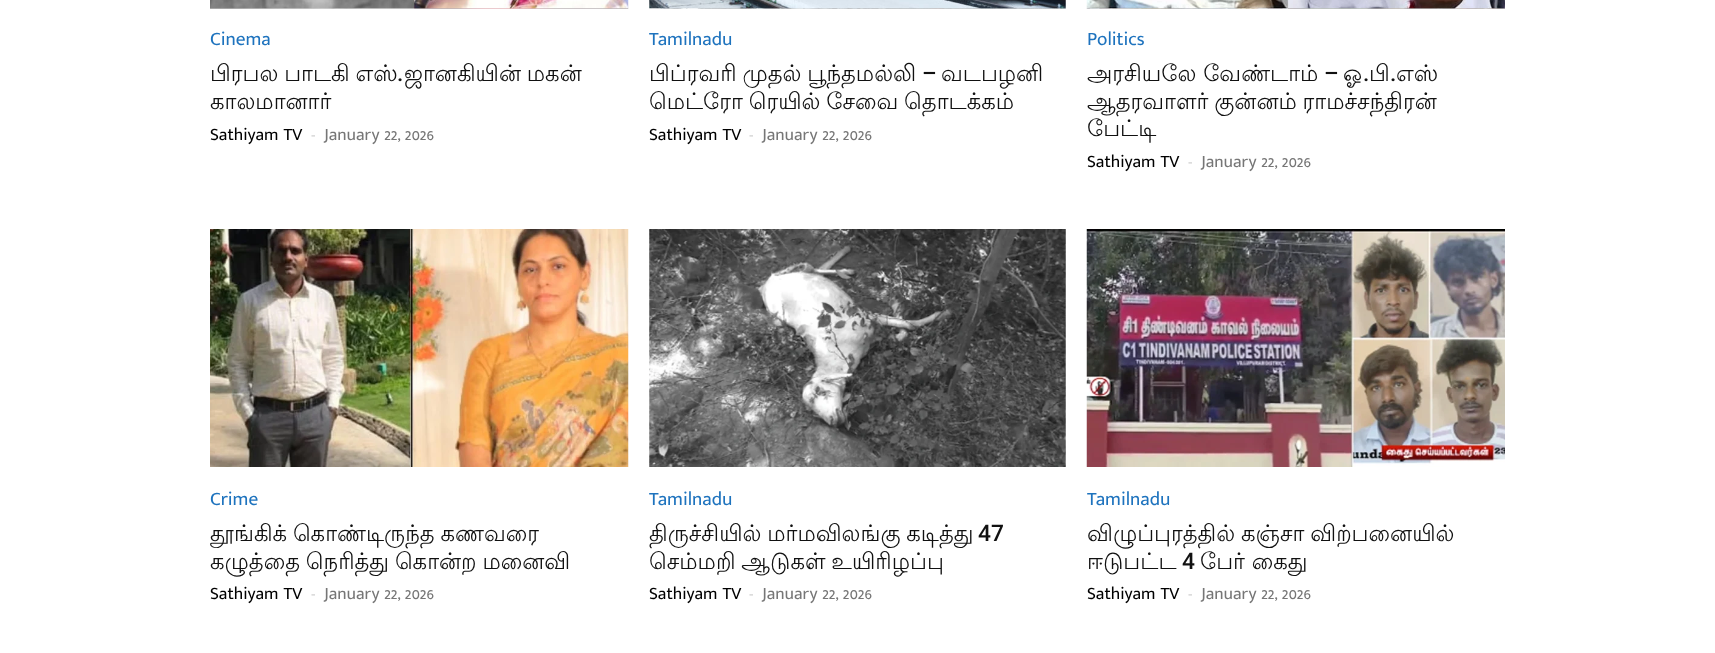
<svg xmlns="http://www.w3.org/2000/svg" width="1715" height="653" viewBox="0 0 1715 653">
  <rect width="100%" height="100%" fill="rgb(255,255,255)"/>
  <image x="210" y="0" width="419" height="9" href="pic1.png"/>
  <text x="210" y="45" font-family="Mukta Malar" font-size="19.25" fill="rgb(30,115,190)">Cinema</text>
  <text x="210" y="81" word-spacing="-1" font-family="Lohit Tamil" font-size="22.75" fill="rgb(17,17,17)">பிரபல பாடகி எஸ்</text>
  <text x="397" y="81" font-family="Roboto" font-size="22.75" font-weight="500" fill="rgb(17,17,17)">.</text>
  <g font-family="Lohit Tamil" font-size="22.75" fill="rgb(17,17,17)">
    <text x="404" y="81" word-spacing="-1">ஜானகியின் மகன்</text>
    <text x="210" y="109">காலமானார்</text>
  </g>
  <text x="210" y="140" font-family="Mukta Malar" font-size="17.5" fill="rgb(0,0,0)">Sathiyam TV</text>
  <text x="311" y="140" font-family="Mukta Malar" font-size="17.5" fill="rgb(204,204,204)">-</text>
  <text x="324" y="140" font-family="Mukta Malar" font-size="17.5" fill="rgb(118,118,118)">January 22, 2026</text>
  <image x="649" y="0" width="417" height="9" href="pic2.png"/>
  <text x="649" y="45" font-family="Mukta Malar" font-size="19.25" fill="rgb(30,115,190)">Tamilnadu</text>
  <text x="649" y="81" word-spacing="-1" font-family="Lohit Tamil" font-size="22.75" fill="rgb(17,17,17)">பிப்ரவரி முதல் பூந்தமல்லி</text>
  <text x="922" y="81" font-family="Roboto" font-size="22.75" font-weight="500" fill="rgb(17,17,17)">–</text>
  <g font-family="Lohit Tamil" font-size="22.75" fill="rgb(17,17,17)">
    <text x="941" y="81">வடபழனி</text>
    <text x="649" y="109" word-spacing="-1">மெட்ரோ ரெயில் சேவை தொடக்கம்</text>
  </g>
  <text x="649" y="140" font-family="Mukta Malar" font-size="17.5" fill="rgb(0,0,0)">Sathiyam TV</text>
  <text x="749" y="140" font-family="Mukta Malar" font-size="17.5" fill="rgb(204,204,204)">-</text>
  <text x="762" y="140" font-family="Mukta Malar" font-size="17.5" fill="rgb(118,118,118)">January 22, 2026</text>
  <image x="1086" y="0" width="419" height="9" href="pic3.png"/>
  <text x="1087" y="45" font-family="Mukta Malar" font-size="19.25" fill="rgb(30,115,190)">Politics</text>
  <text x="1087" y="81" font-family="Lohit Tamil" font-size="22.75" fill="rgb(17,17,17)">அரசியலே வேண்டாம்</text>
  <text x="1324" y="81" font-family="Roboto" font-size="22.75" font-weight="500" fill="rgb(17,17,17)">–</text>
  <g font-family="Lohit Tamil" font-size="22.75" fill="rgb(17,17,17)">
    <text x="1343" y="81">ஓ</text>
    <text x="1369" y="81">பி</text>
    <text x="1396" y="81">எஸ்</text>
  </g>
  <g font-family="Roboto" font-size="22.75" font-weight="500" fill="rgb(17,17,17)">
    <text x="1363" y="81">.</text>
    <text x="1390" y="81">.</text>
  </g>
  <g font-family="Lohit Tamil" font-size="22.75" fill="rgb(17,17,17)">
    <text>
      <tspan x="1087" y="109" word-spacing="-1">ஆதரவாளர் குன்னம் ராமச்சந்திரன்</tspan>
      <tspan x="1087" y="136">பேட்டி</tspan>
    </text>
  </g>
  <text x="1087" y="167" font-family="Mukta Malar" font-size="17.5" fill="rgb(0,0,0)">Sathiyam TV</text>
  <text x="1188" y="167" font-family="Mukta Malar" font-size="17.5" fill="rgb(204,204,204)">-</text>
  <text x="1201" y="167" font-family="Mukta Malar" font-size="17.5" fill="rgb(118,118,118)">January 22, 2026</text>
  <image x="210" y="229" width="419" height="238" href="pic4.png"/>
  <text x="210" y="505" font-family="Mukta Malar" font-size="19.25" fill="rgb(30,115,190)">Crime</text>
  <g font-family="Lohit Tamil" font-size="22.75" fill="rgb(17,17,17)">
    <text>
      <tspan x="210" y="541" word-spacing="-1">தூங்கிக் கொண்டிருந்த கணவரை</tspan>
      <tspan x="210" y="569" word-spacing="-1">கழுத்தை நெரித்து கொன்ற மனைவி</tspan>
    </text>
  </g>
  <text x="210" y="599" font-family="Mukta Malar" font-size="17.5" fill="rgb(0,0,0)">Sathiyam TV</text>
  <text x="311" y="599" font-family="Mukta Malar" font-size="17.5" fill="rgb(204,204,204)">-</text>
  <text x="324" y="599" font-family="Mukta Malar" font-size="17.5" fill="rgb(118,118,118)">January 22, 2026</text>
  <image x="649" y="229" width="417" height="238" href="pic5.png"/>
  <text x="649" y="505" font-family="Mukta Malar" font-size="19.25" fill="rgb(30,115,190)">Tamilnadu</text>
  <text x="649" y="541" word-spacing="-1" font-family="Lohit Tamil" font-size="22.75" fill="rgb(17,17,17)">திருச்சியில் மர்மவிலங்கு கடித்து</text>
  <text x="978" y="541" font-family="Roboto" font-size="22.75" font-weight="500" fill="rgb(17,17,17)">47</text>
  <text x="649" y="569" word-spacing="-1" font-family="Lohit Tamil" font-size="22.75" fill="rgb(17,17,17)">செம்மறி ஆடுகள் உயிரிழப்பு</text>
  <text x="649" y="599" font-family="Mukta Malar" font-size="17.5" fill="rgb(0,0,0)">Sathiyam TV</text>
  <text x="749" y="599" font-family="Mukta Malar" font-size="17.5" fill="rgb(204,204,204)">-</text>
  <text x="762" y="599" font-family="Mukta Malar" font-size="17.5" fill="rgb(118,118,118)">January 22, 2026</text>
  <image x="1086" y="229" width="419" height="238" href="pic6.png"/>
  <text x="1087" y="505" font-family="Mukta Malar" font-size="19.25" fill="rgb(30,115,190)">Tamilnadu</text>
  <g font-family="Lohit Tamil" font-size="22.75" fill="rgb(17,17,17)">
    <text>
      <tspan x="1087" y="541" word-spacing="-1">விழுப்புரத்தில் கஞ்சா விற்பனையில்</tspan>
      <tspan x="1087" y="569">ஈடுபட்ட</tspan>
    </text>
  </g>
  <text x="1182" y="569" font-family="Roboto" font-size="22.75" font-weight="500" fill="rgb(17,17,17)">4</text>
  <text x="1200" y="569" font-family="Lohit Tamil" font-size="22.75" fill="rgb(17,17,17)">பேர் கைது</text>
  <text x="1087" y="599" font-family="Mukta Malar" font-size="17.5" fill="rgb(0,0,0)">Sathiyam TV</text>
  <text x="1188" y="599" font-family="Mukta Malar" font-size="17.5" fill="rgb(204,204,204)">-</text>
  <text x="1201" y="599" font-family="Mukta Malar" font-size="17.5" fill="rgb(118,118,118)">January 22, 2026</text>
</svg>
